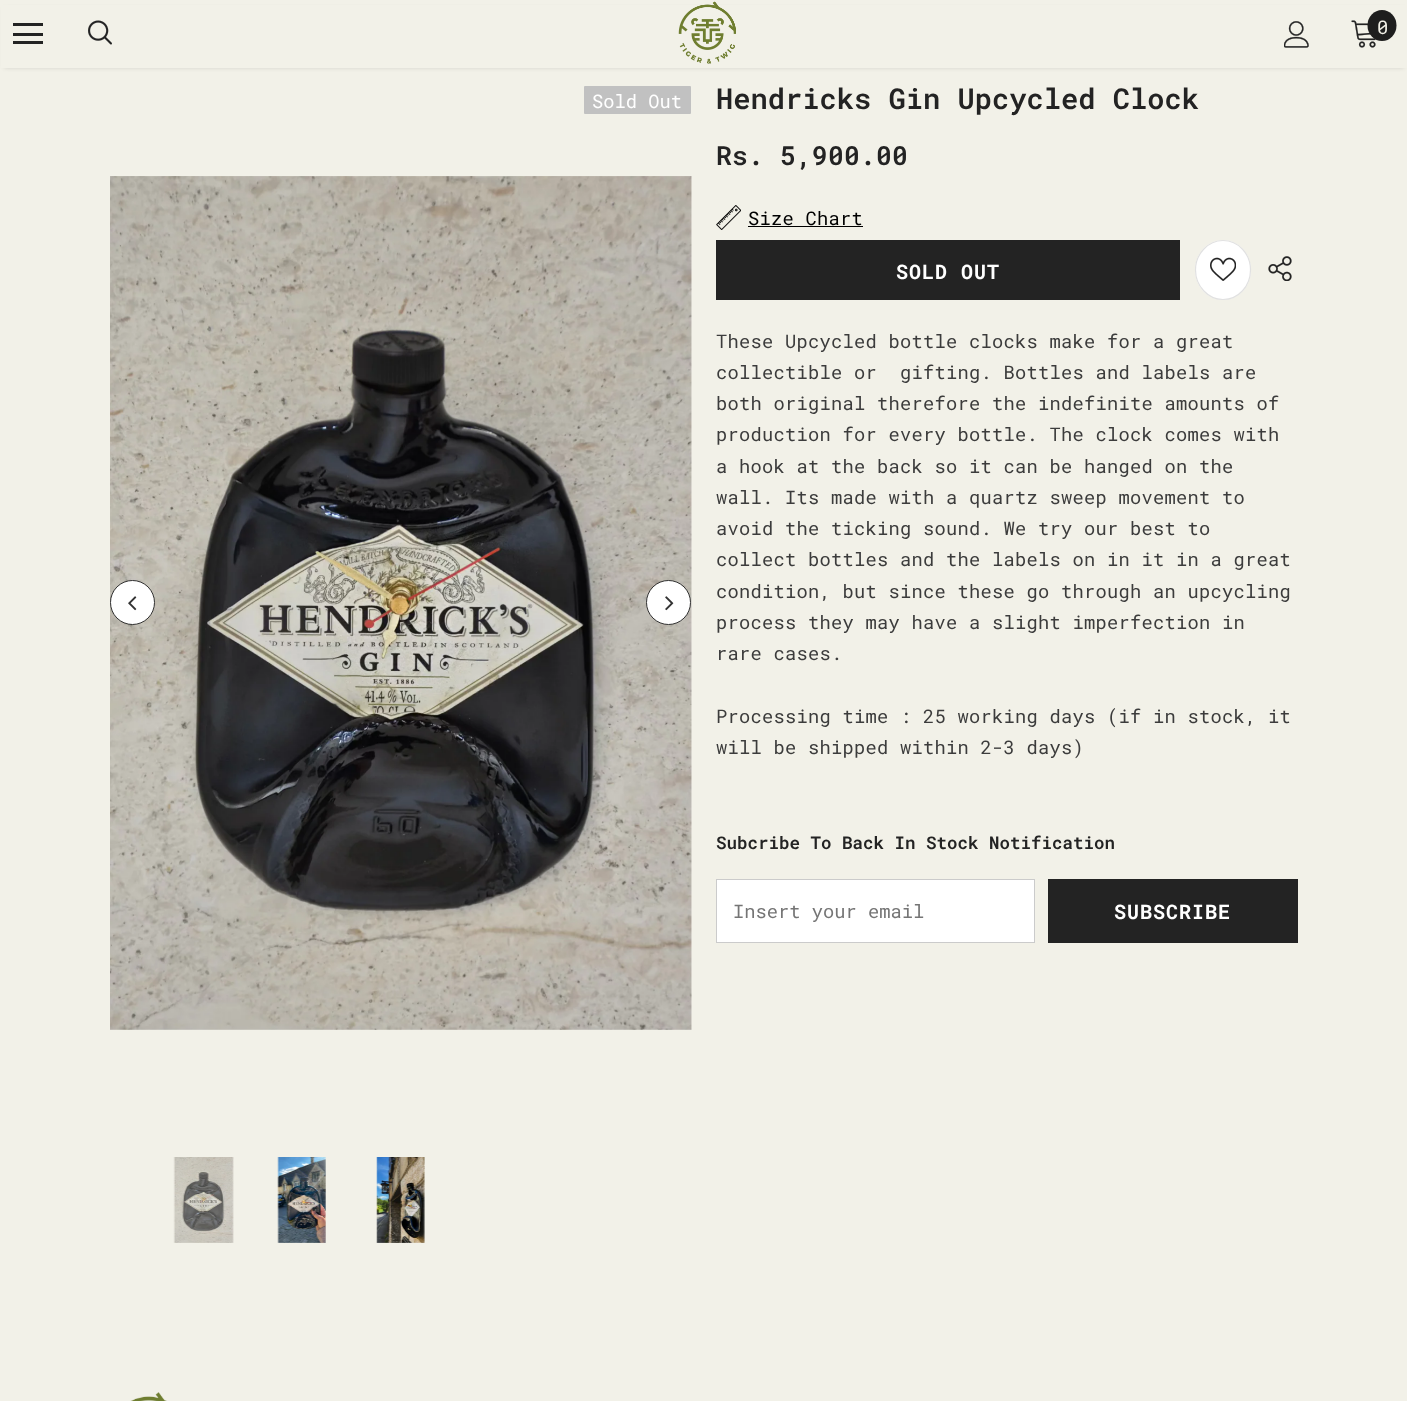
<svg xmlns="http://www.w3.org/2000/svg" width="1407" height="1401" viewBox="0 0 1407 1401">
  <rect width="100%" height="100%" fill="rgb(242,241,232)"/>
  <rect x="4" y="8" width="1400" height="60" fill="rgba(0,0,0,0.12)" filter="blur(2px)"/>
  <rect x="1" y="5" width="1406" height="63" fill="rgb(242,241,232)"/>
  <rect x="13" y="23" width="30" height="3" fill="rgb(35,35,35)"/>
  <rect x="13" y="33" width="30" height="3" fill="rgb(35,35,35)"/>
  <rect x="13" y="41" width="30" height="3" fill="rgb(35,35,35)"/>
  <image x="88" y="20" width="24" height="25" href="pic1.png"/>
  <image x="678" y="1" width="58" height="63" href="pic2.png"/>
  <image x="1284" y="21" width="25" height="27" href="pic3.png"/>
  <image x="1351" y="20" width="25" height="28" href="pic4.png"/>
  <ellipse cx="1382" cy="25.5" rx="14.5" ry="15.5" fill="rgb(30,30,30)"/>
  <text x="1377" y="34" font-family="Roboto Mono" font-size="18.75" fill="rgb(242,241,232)">0</text>
  <rect x="584" y="86" width="107" height="28" rx="1" fill="rgb(193,193,193)"/>
  <text x="592" y="108" font-family="Roboto Mono" font-size="18.75" fill="rgb(255,255,255)">Sold Out</text>
  <image x="110" y="176" width="582" height="854" href="pic5.png"/>
  <circle cx="132.5" cy="602.5" r="22" fill="rgb(255,255,255)" stroke="rgb(50,50,50)"/>
  <image x="128" y="596" width="9" height="15" href="pic6.png"/>
  <circle cx="668.5" cy="602.5" r="22" fill="rgb(255,255,255)" stroke="rgb(50,50,50)"/>
  <image x="665" y="596" width="9" height="15" href="pic7.png"/>
  <image x="173" y="1157" width="61" height="86" href="pic8.png"/>
  <image x="277" y="1157" width="49" height="86" href="pic9.png"/>
  <image x="376" y="1157" width="49" height="86" href="pic10.png"/>
  <text x="716" y="109" font-family="Roboto Mono" font-size="28.75" font-weight="600" fill="rgb(35,35,35)">Hendricks Gin Upcycled Clock</text>
  <text x="716" y="165" font-family="Roboto Mono" font-size="26.25" font-weight="600" letter-spacing="0.25" fill="rgb(35,35,35)">Rs. 5,900.00</text>
  <image x="716" y="205" width="25" height="25" href="pic11.png"/>
  <text x="748" y="225" font-family="Roboto Mono" font-size="18.75" letter-spacing="0.25" fill="rgb(0,0,0)">Size Chart</text>
  <rect x="748" y="226" width="115" height="1" fill="rgb(0,0,0)"/>
  <rect x="716" y="240" width="464" height="60" fill="rgb(35,35,35)"/>
  <text x="896" y="279" font-family="Roboto Mono" font-size="20" font-weight="bold" letter-spacing="1" fill="rgb(255,255,255)">SOLD OUT</text>
  <ellipse cx="1223" cy="270" rx="28" ry="30" fill="rgb(255,255,255)"/>
  <path d="M1223 240.5C1238.5 240.5 1250.5 254 1250.5 270C1250.5 286 1238.5 299.5 1223 299.5C1208 299.5 1195.5 286 1195.5 270C1195.5 254 1208 240.5 1223 240.5Z" fill="none" stroke="rgb(225,225,225)" stroke-width="1.2"/>
  <image x="1210" y="257" width="26" height="24" href="pic12.png"/>
  <image x="1268" y="256" width="24" height="25" href="pic13.png"/>
  <g font-family="Roboto Mono" font-size="18.75" letter-spacing="0.25" fill="rgb(60,60,60)">
    <text xml:space="preserve"><tspan x="716" y="348">These Upcycled bottle clocks make for a great</tspan><tspan x="716" y="379">collectible or  gifting. Bottles and labels are</tspan><tspan x="716" y="410">both original therefore the indefinite amounts of</tspan><tspan x="716" y="441">production for every bottle. The clock comes with</tspan><tspan x="716" y="473">a hook at the back so it can be hanged on the</tspan><tspan x="716" y="504">wall. Its made with a quartz sweep movement to</tspan><tspan x="716" y="535">avoid the ticking sound. We try our best to</tspan><tspan x="716" y="566">collect bottles and the labels on in it in a great</tspan><tspan x="716" y="598">condition, but since these go through an upcycling</tspan><tspan x="716" y="629">process they may have a slight imperfection in</tspan><tspan x="716" y="660">rare cases.</tspan></text>
    <text>
      <tspan x="716" y="723">Processing time : 25 working days (if in stock, it</tspan>
      <tspan x="716" y="754">will be shipped within 2-3 days)</tspan>
    </text>
  </g>
  <text x="716" y="849" font-family="Roboto Mono" font-size="17.5" font-weight="600" fill="rgb(35,35,35)">Subcribe To Back In Stock Notification</text>
  <rect x="716.5" y="879.5" width="318" height="63" fill="rgb(255,255,255)" stroke="rgb(203,203,203)"/>
  <text x="733" y="918" font-family="Roboto Mono" font-size="18.75" fill="rgb(117,117,117)">Insert your email</text>
  <rect x="1048" y="879" width="250" height="64" fill="rgb(35,35,35)"/>
  <text x="1114" y="919" font-family="Roboto Mono" font-size="20" font-weight="bold" letter-spacing="1" fill="rgb(255,255,255)">SUBSCRIBE</text>
  <image x="130" y="1392" width="37" height="9" href="pic14.png"/>
</svg>
